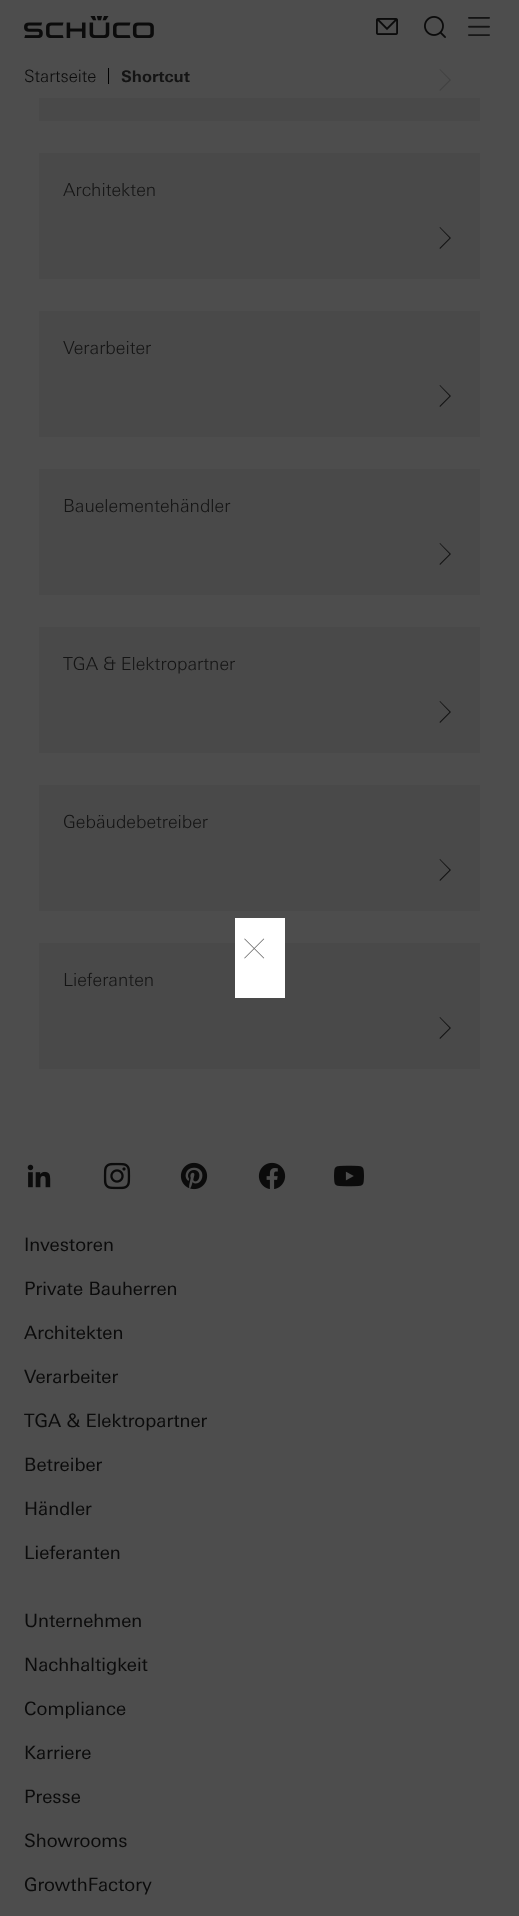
<svg xmlns="http://www.w3.org/2000/svg" width="519" height="1916" viewBox="0 0 519 1916">
  <rect width="100%" height="100%" fill="rgb(77,77,77)"/>
  <image x="24" y="16" width="130" height="22" href="pic1.png"/>
  <image x="376" y="18" width="22" height="17" href="pic2.png"/>
  <image x="424" y="16" width="22" height="22" href="pic3.png"/>
  <image x="468" y="17" width="22" height="19" href="pic4.png"/>
  <text x="24" y="82" font-family="univers" font-size="17" font-weight="300" fill="rgb(11,11,11)">Startseite</text>
  <rect x="108" y="68" width="1" height="16" fill="rgb(0,0,0)"/>
  <text x="121" y="82" font-family="Univers" font-size="16" font-weight="bold" fill="rgb(20,20,20)">Shortcut</text>
  <rect x="39" y="98" width="441" height="23" fill="rgb(73,73,73)"/>
  <path d="M451 80L440 91L439.5 90L449.5 80L439.5 69.5L440 69Z" fill="rgb(65,65,65)"/>
  <rect x="39" y="153" width="441" height="126" fill="rgb(73,73,73)"/>
  <text x="63" y="196" font-family="univers" font-size="18" font-weight="300" fill="rgb(20,20,20)">Architekten</text>
  <path d="M451 238L440 249L439.5 248L449.5 238L439.5 227.5L440 227Z" fill="rgb(20,20,20)"/>
  <rect x="39" y="311" width="441" height="126" fill="rgb(73,73,73)"/>
  <text x="63" y="354" font-family="univers" font-size="18" font-weight="300" fill="rgb(20,20,20)">Verarbeiter</text>
  <path d="M451 396L440 407L439.5 406L449.5 396L439.5 385.5L440 385Z" fill="rgb(20,20,20)"/>
  <rect x="39" y="469" width="441" height="126" fill="rgb(73,73,73)"/>
  <text x="63" y="512" font-family="univers" font-size="18" font-weight="300" fill="rgb(20,20,20)">Bauelementehändler</text>
  <path d="M451 554L440 565L439.5 564L449.5 554L439.5 543.5L440 543Z" fill="rgb(20,20,20)"/>
  <rect x="39" y="627" width="441" height="126" fill="rgb(73,73,73)"/>
  <text x="63" y="670" font-family="univers" font-size="18" font-weight="300" fill="rgb(20,20,20)">TGA &amp; Elektropartner</text>
  <path d="M451 712L440 723L439.5 722L449.5 712L439.5 701.5L440 701Z" fill="rgb(20,20,20)"/>
  <rect x="39" y="785" width="441" height="126" fill="rgb(73,73,73)"/>
  <text x="63" y="828" font-family="univers" font-size="18" font-weight="300" fill="rgb(20,20,20)">Gebäudebetreiber</text>
  <path d="M451 870L440 881L439.5 880L449.5 870L439.5 859.5L440 859Z" fill="rgb(20,20,20)"/>
  <rect x="39" y="943" width="441" height="126" fill="rgb(73,73,73)"/>
  <text x="63" y="986" font-family="univers" font-size="18" font-weight="300" fill="rgb(20,20,20)">Lieferanten</text>
  <path d="M451 1028L440 1039L439.5 1038L449.5 1028L439.5 1017.5L440 1017Z" fill="rgb(20,20,20)"/>
  <rect x="235" y="918" width="50" height="80" fill="rgb(255,255,255)"/>
  <image x="244" y="938" width="21" height="21" href="pic5.png"/>
  <image x="27" y="1164" width="24" height="24" href="pic6.png"/>
  <image x="103" y="1162" width="28" height="28" href="pic7.png"/>
  <image x="180" y="1162" width="28" height="28" href="pic8.png"/>
  <image x="258" y="1162" width="28" height="27" href="pic9.png"/>
  <image x="334" y="1165" width="30" height="22" href="pic10.png"/>
  <g font-family="Univers" font-size="18.5" fill="rgb(11,11,11)">
    <text x="24" y="1251">Investoren</text>
    <text x="24" y="1295">Private Bauherren</text>
    <text x="24" y="1339">Architekten</text>
    <text x="24" y="1383">Verarbeiter</text>
    <text x="24" y="1427">TGA &amp; Elektropartner</text>
    <text x="24" y="1471">Betreiber</text>
    <text x="24" y="1515">Händler</text>
    <text x="24" y="1559">Lieferanten</text>
    <text x="24" y="1627">Unternehmen</text>
    <text x="24" y="1671">Nachhaltigkeit</text>
    <text x="24" y="1715">Compliance</text>
    <text x="24" y="1759">Karriere</text>
    <text x="24" y="1803">Presse</text>
    <text x="24" y="1847">Showrooms</text>
    <text x="24" y="1891">GrowthFactory</text>
  </g>
</svg>
